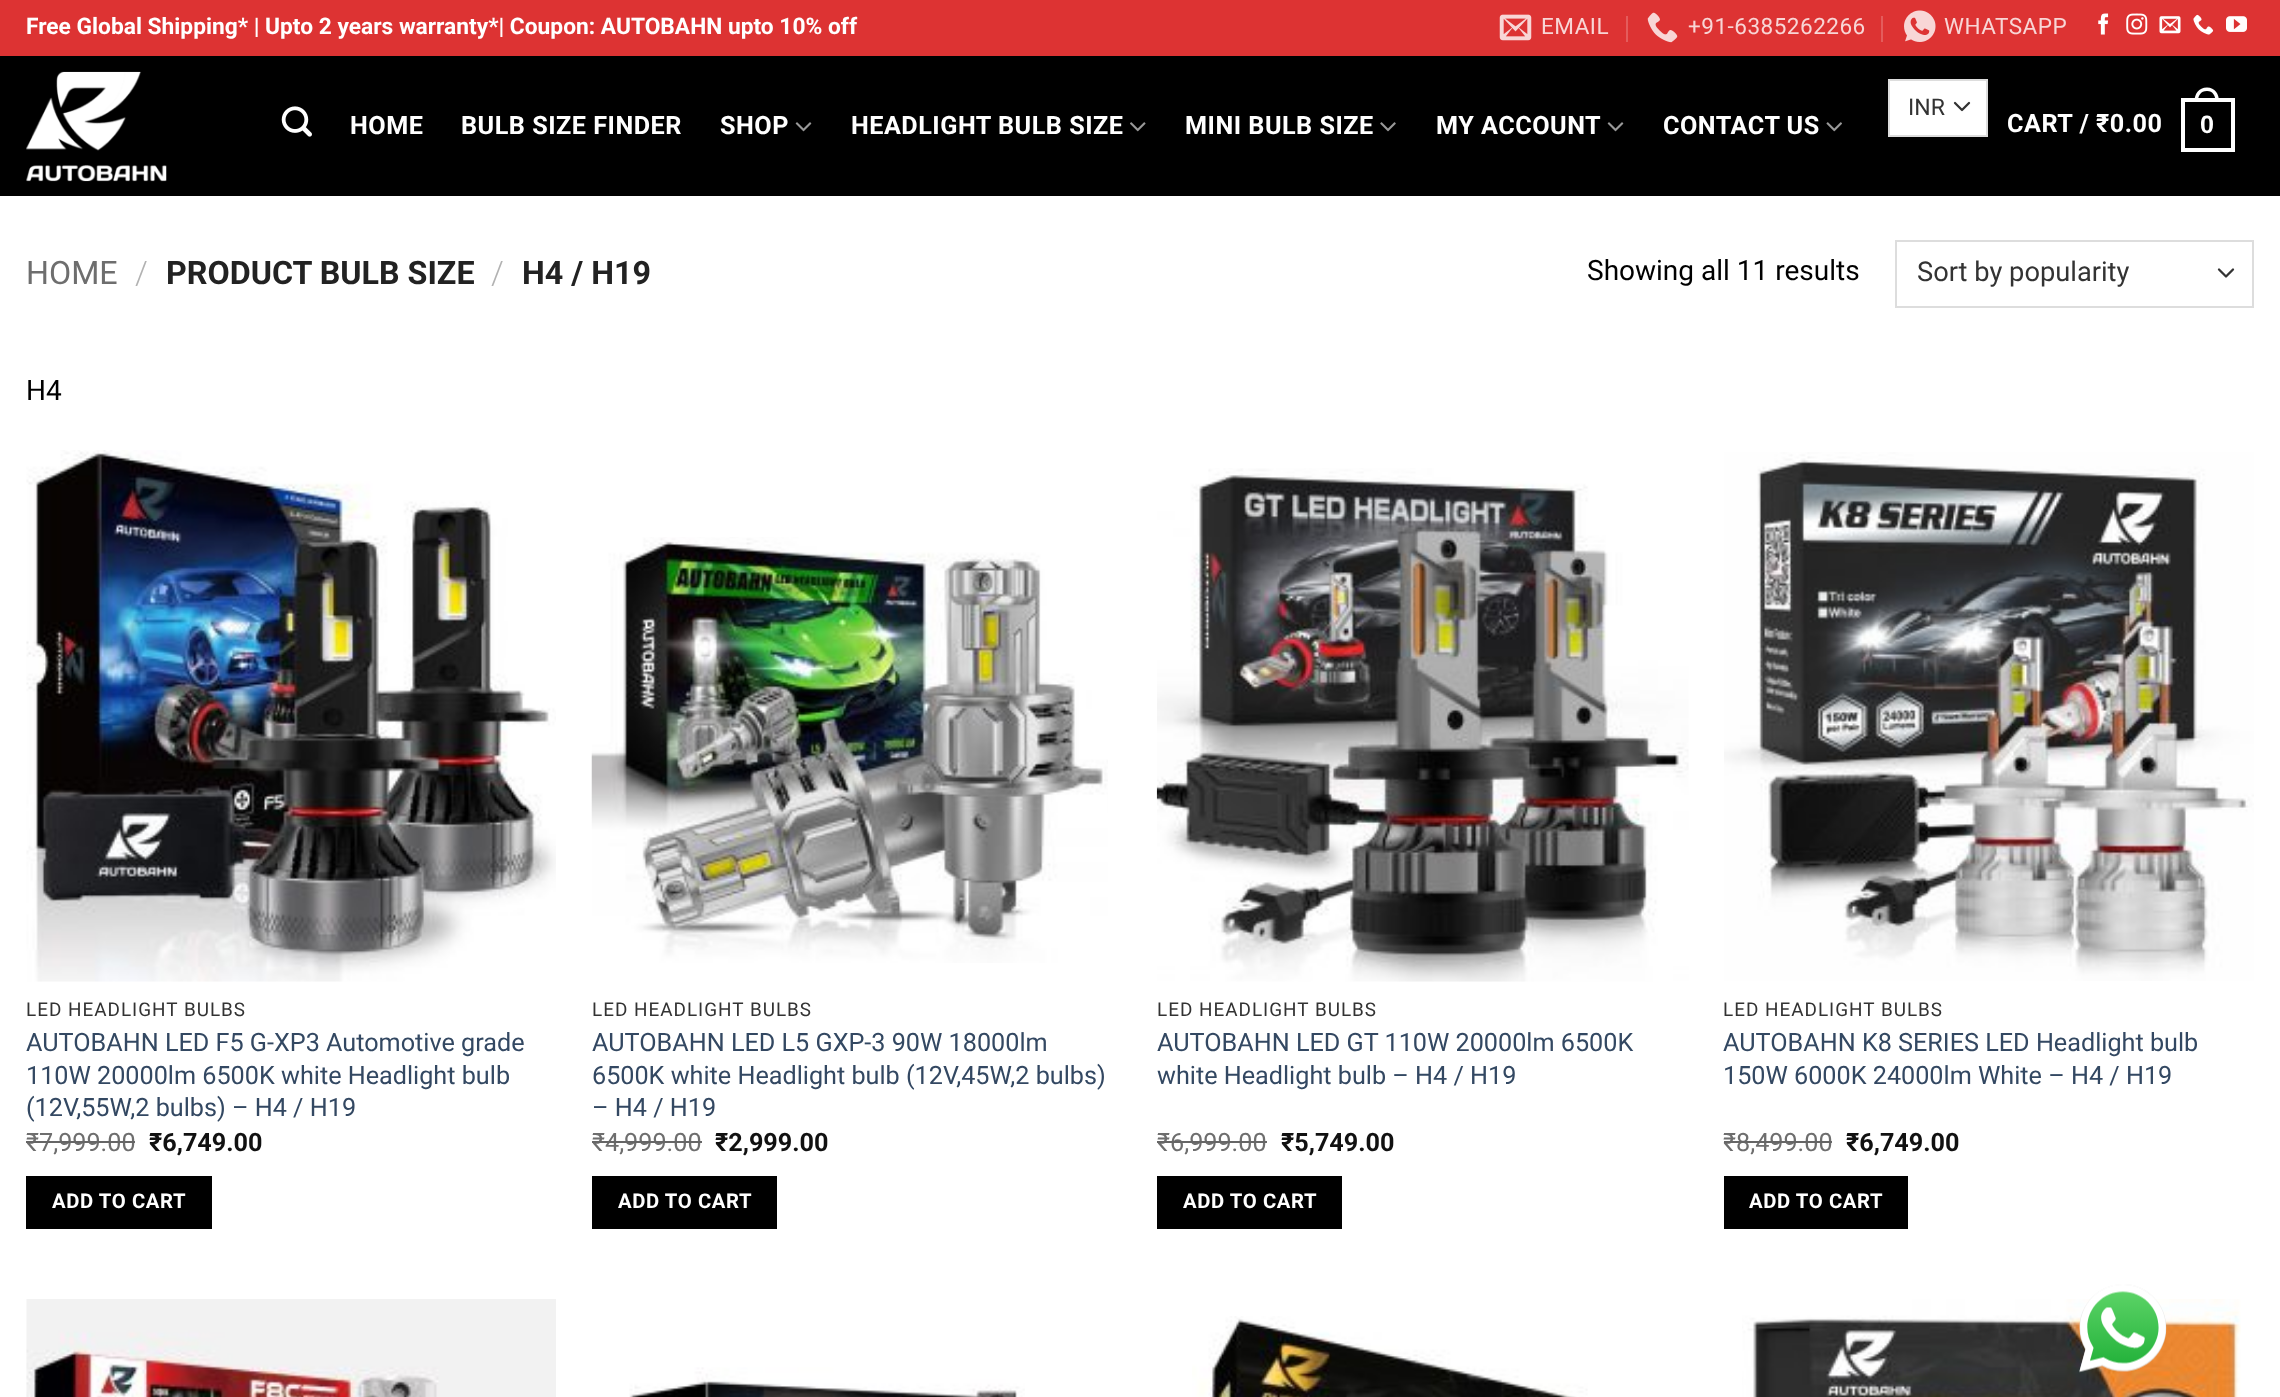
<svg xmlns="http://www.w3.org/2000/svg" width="2280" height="1397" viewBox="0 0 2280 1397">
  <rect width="100%" height="100%" fill="rgb(255,255,255)"/>
  <rect x="0" y="0" width="2280" height="56" fill="rgb(221,51,51)"/>
  <text x="26" y="34" font-family="Roboto" font-size="22.75" font-weight="bold" fill="rgb(255,255,255)">Free Global Shipping* | Upto 2 years warranty*| Coupon: AUTOBAHN upto 10% off</text>
  <image x="1499" y="14" width="33" height="27" href="pic1.png"/>
  <text x="1541" y="34" font-family="Roboto" font-size="22.5" letter-spacing="0.5" fill="rgb(248,214,214)">EMAIL</text>
  <rect x="1626" y="16" width="2" height="26" fill="rgb(228,92,92)"/>
  <image x="1647" y="12" width="31" height="31" href="pic2.png"/>
  <text x="1688" y="34" font-family="Roboto" font-size="22.5" letter-spacing="0.5" fill="rgb(248,214,214)">+91-6385262266</text>
  <rect x="1881" y="16" width="2" height="26" fill="rgb(228,92,92)"/>
  <image x="1904" y="10" width="32" height="32" href="pic3.png"/>
  <text x="1944" y="34" font-family="Roboto" font-size="22.5" letter-spacing="0.5" fill="rgb(248,214,214)">WHATSAPP</text>
  <image x="2098" y="13" width="11" height="22" href="pic4.png"/>
  <image x="2126" y="13" width="22" height="22" href="pic5.png"/>
  <image x="2159" y="16" width="22" height="18" href="pic6.png"/>
  <image x="2193" y="14" width="21" height="21" href="pic7.png"/>
  <image x="2226" y="16" width="21" height="16" href="pic8.png"/>
  <rect x="0" y="56" width="2280" height="140" fill="rgb(0,0,0)"/>
  <image x="26" y="71" width="141" height="111" href="pic9.png"/>
  <image x="281" y="106" width="31" height="31" href="pic10.png"/>
  <g font-family="Roboto" font-size="25.2" font-weight="bold" letter-spacing="0.5" fill="rgb(255,255,255)">
    <text x="350" y="134">HOME</text>
    <text x="461" y="134">BULB SIZE FINDER</text>
    <text x="720" y="134">SHOP</text>
  </g>
  <image x="795" y="122" width="17" height="10" href="pic11.png"/>
  <text x="851" y="134" font-family="Roboto" font-size="25.2" font-weight="bold" letter-spacing="0.5" fill="rgb(255,255,255)">HEADLIGHT BULB SIZE</text>
  <image x="1130" y="122" width="16" height="10" href="pic12.png"/>
  <text x="1185" y="134" font-family="Roboto" font-size="25.2" font-weight="bold" letter-spacing="0.5" fill="rgb(255,255,255)">MINI BULB SIZE</text>
  <image x="1380" y="122" width="16" height="10" href="pic13.png"/>
  <text x="1436" y="134" font-family="Roboto" font-size="25.2" font-weight="bold" letter-spacing="0.5" fill="rgb(255,255,255)">MY ACCOUNT</text>
  <image x="1607" y="122" width="17" height="10" href="pic11.png"/>
  <text x="1663" y="134" font-family="Roboto" font-size="25.2" font-weight="bold" letter-spacing="0.5" fill="rgb(255,255,255)">CONTACT US</text>
  <image x="1826" y="122" width="16" height="10" href="pic14.png"/>
  <rect x="1890" y="81" width="96" height="54" fill="rgb(255,255,255)"/>
  <path d="M1955 103L1962 110L1969 103" fill="none" stroke="rgb(51,51,51)" stroke-width="2.3" stroke-linecap="round" stroke-linejoin="round"/>
  <rect x="1889" y="80" width="98" height="56" fill="none" stroke="rgb(221,221,221)" stroke-width="2"/>
  <text x="1908" y="115" font-family="Roboto" font-size="23" fill="rgb(51,51,51)">INR</text>
  <text x="2007" y="132" font-family="Roboto" font-size="25.2" font-weight="bold" letter-spacing="0.5" fill="rgb(255,255,255)">CART / ₹0.00</text>
  <rect x="2183" y="100" width="50" height="50" fill="none" stroke="rgb(255,255,255)" stroke-width="4"/>
  <path d="M2207 87.5C2215 87.5 2219 94 2219 101.5H2194.5C2194.5 94 2198.5 87.5 2207 87.5ZM2207 91C2213 91 2215.5 96 2215.5 101.5H2198C2198 96 2200.5 91 2207 91Z" fill="rgb(255,255,255)" fill-rule="evenodd"/>
  <text x="2200" y="133" font-family="Liberation Sans" font-size="25.2" font-weight="bold" letter-spacing="0.5" fill="rgb(255,255,255)">0</text>
  <text x="26" y="284" font-family="Roboto" font-size="32.25" fill="rgb(110,110,110)">HOME</text>
  <text x="135" y="284" font-family="Roboto" font-size="32.25" font-weight="300" fill="rgb(178,178,178)">/</text>
  <text x="166" y="284" font-family="Roboto" font-size="32.25" font-weight="bold" fill="rgb(34,34,34)">PRODUCT BULB SIZE</text>
  <text x="491" y="284" font-family="Roboto" font-size="32.25" font-weight="300" fill="rgb(178,178,178)">/</text>
  <text x="522" y="284" font-family="Roboto" font-size="32.25" font-weight="bold" fill="rgb(34,34,34)">H4 / H19</text>
  <text x="1587" y="280" font-family="Roboto" font-size="28" fill="rgb(0,0,0)">Showing all 11 results</text>
  <path d="M2219 269.5L2226 276.5L2233 269.5" fill="none" stroke="rgb(51,51,51)" stroke-width="2.3" stroke-linecap="round" stroke-linejoin="round"/>
  <rect x="1896" y="241" width="357" height="66" fill="none" stroke="rgb(221,221,221)" stroke-width="2"/>
  <text x="1917" y="281" font-family="Roboto" font-size="27.25" fill="rgb(51,51,51)">Sort by popularity</text>
  <text x="26" y="400" font-family="Roboto" font-size="28" fill="rgb(0,0,0)">H4</text>
  <image x="26" y="450" width="530" height="532" href="pic15.png"/>
  <text x="26" y="1016" font-family="Roboto" font-size="18.9" letter-spacing="1" fill="rgb(51,51,51)">LED HEADLIGHT BULBS</text>
  <g font-family="Roboto" font-size="25.2" fill="rgb(51,72,98)">
    <text>
      <tspan x="26" y="1051">AUTOBAHN LED F5 G-XP3 Automotive grade</tspan>
      <tspan x="26" y="1084">110W 20000lm 6500K white Headlight bulb</tspan>
      <tspan x="26" y="1116">(12V,55W,2 bulbs) – H4 / H19</tspan>
    </text>
  </g>
  <text x="26" y="1151" font-family="Roboto" font-size="25.2" fill="rgb(110,110,110)">₹7,999.00</text>
  <rect x="26" y="1141" width="109" height="2" fill="rgb(102,102,102)"/>
  <text x="149" y="1151" font-family="Roboto" font-size="25.2" font-weight="bold" fill="rgb(17,17,17)">₹6,749.00</text>
  <rect x="26" y="1176" width="186" height="53" fill="rgb(0,0,0)"/>
  <text x="52" y="1208" font-family="Roboto" font-size="20.25" font-weight="bold" letter-spacing="0.6" fill="rgb(255,255,255)">ADD TO CART</text>
  <image x="591" y="537" width="517" height="426" href="pic16.png"/>
  <text x="592" y="1016" font-family="Roboto" font-size="18.9" letter-spacing="1" fill="rgb(51,51,51)">LED HEADLIGHT BULBS</text>
  <g font-family="Roboto" font-size="25.2" fill="rgb(51,72,98)">
    <text>
      <tspan x="592" y="1051">AUTOBAHN LED L5 GXP-3 90W 18000lm</tspan>
      <tspan x="592" y="1084">6500K white Headlight bulb (12V,45W,2 bulbs)</tspan>
      <tspan x="592" y="1116">– H4 / H19</tspan>
    </text>
  </g>
  <text x="592" y="1151" font-family="Roboto" font-size="25.2" fill="rgb(110,110,110)">₹</text>
  <rect x="592" y="1141" width="14" height="2" fill="rgb(102,102,102)"/>
  <text x="605" y="1151" font-family="Roboto" font-size="25.2" fill="rgb(110,110,110)">4,999.00</text>
  <rect x="606" y="1141" width="96" height="2" fill="rgb(102,102,102)"/>
  <text x="715" y="1151" font-family="Roboto" font-size="25.2" font-weight="bold" fill="rgb(17,17,17)">₹2,999.00</text>
  <rect x="592" y="1176" width="185" height="53" fill="rgb(0,0,0)"/>
  <text x="618" y="1208" font-family="Roboto" font-size="20.25" font-weight="bold" letter-spacing="0.6" fill="rgb(255,255,255)">ADD TO CART</text>
  <image x="1156" y="468" width="533" height="514" href="pic17.png"/>
  <text x="1157" y="1016" font-family="Roboto" font-size="18.9" letter-spacing="1" fill="rgb(51,51,51)">LED HEADLIGHT BULBS</text>
  <g font-family="Roboto" font-size="25.2" fill="rgb(51,72,98)">
    <text>
      <tspan x="1157" y="1051">AUTOBAHN LED GT 110W 20000lm 6500K</tspan>
      <tspan x="1157" y="1084">white Headlight bulb – H4 / H19</tspan>
    </text>
  </g>
  <text x="1157" y="1151" font-family="Roboto" font-size="25.2" fill="rgb(110,110,110)">₹6,999.00</text>
  <rect x="1157" y="1141" width="110" height="2" fill="rgb(102,102,102)"/>
  <text x="1281" y="1151" font-family="Roboto" font-size="25.2" font-weight="bold" fill="rgb(17,17,17)">₹5,749.00</text>
  <rect x="1157" y="1176" width="185" height="53" fill="rgb(0,0,0)"/>
  <text x="1183" y="1208" font-family="Roboto" font-size="20.25" font-weight="bold" letter-spacing="0.6" fill="rgb(255,255,255)">ADD TO CART</text>
  <image x="1724" y="452" width="530" height="529" href="pic18.png"/>
  <text x="1723" y="1016" font-family="Roboto" font-size="18.9" letter-spacing="1" fill="rgb(51,51,51)">LED HEADLIGHT BULBS</text>
  <g font-family="Roboto" font-size="25.2" fill="rgb(51,72,98)">
    <text>
      <tspan x="1723" y="1051">AUTOBAHN K8 SERIES LED Headlight bulb</tspan>
      <tspan x="1723" y="1084">150W 6000K 24000lm White – H4 / H19</tspan>
    </text>
  </g>
  <text x="1723" y="1151" font-family="Roboto" font-size="25.2" fill="rgb(110,110,110)">₹8,499.00</text>
  <rect x="1724" y="1141" width="108" height="2" fill="rgb(102,102,102)"/>
  <text x="1846" y="1151" font-family="Roboto" font-size="25.2" font-weight="bold" fill="rgb(17,17,17)">₹6,749.00</text>
  <rect x="1724" y="1176" width="184" height="53" fill="rgb(0,0,0)"/>
  <text x="1749" y="1208" font-family="Roboto" font-size="20.25" font-weight="bold" letter-spacing="0.6" fill="rgb(255,255,255)">ADD TO CART</text>
  <image x="26" y="1299" width="530" height="98" href="pic19.png"/>
  <image x="629" y="1367" width="396" height="30" href="pic20.png"/>
  <image x="1192" y="1316" width="396" height="81" href="pic21.png"/>
  <image x="1742" y="1299" width="499" height="98" href="pic22.png"/>
  <image x="2079" y="1284" width="88" height="89" href="pic23.png"/>
</svg>
